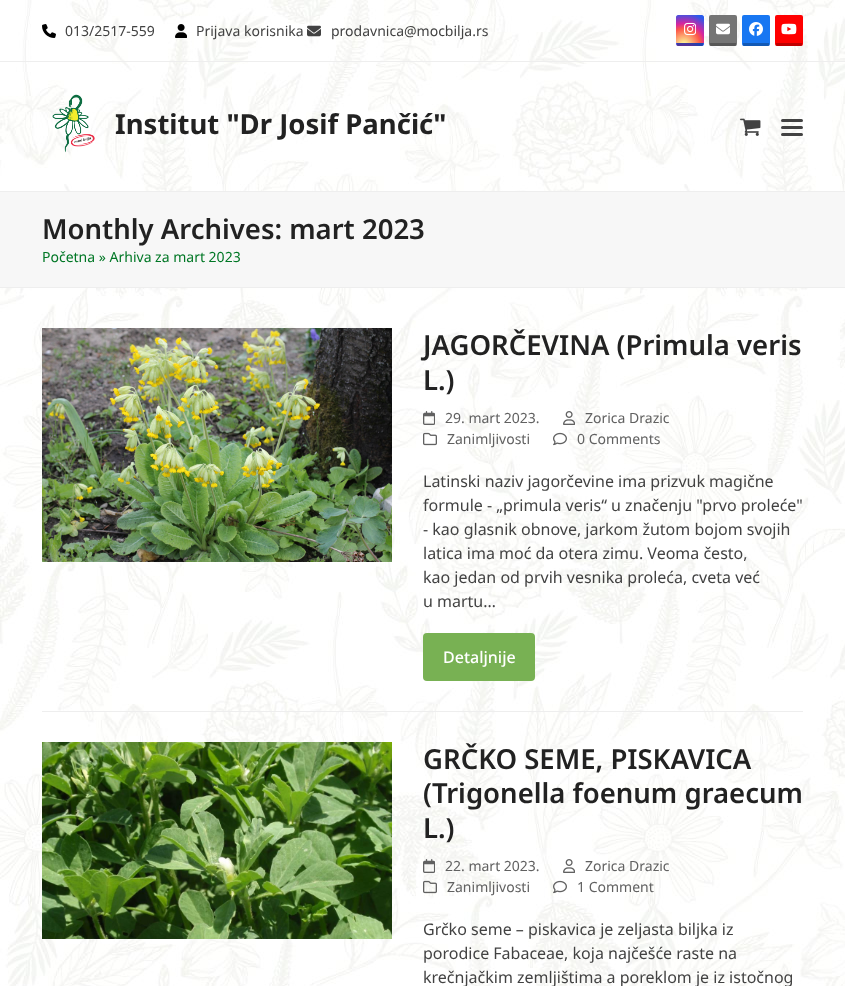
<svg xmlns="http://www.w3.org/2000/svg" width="845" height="986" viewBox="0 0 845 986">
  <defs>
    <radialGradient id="g1" gradientUnits="userSpaceOnUse" cx="684" cy="45" r="36"><stop offset="0" stop-color="rgb(253,244,151)"/><stop offset="0.05" stop-color="rgb(253,244,151)"/><stop offset="0.45" stop-color="rgb(253,89,73)"/><stop offset="0.6" stop-color="rgb(214,36,159)"/><stop offset="0.9" stop-color="rgb(40,90,235)"/></radialGradient>
    <radialGradient id="g2" gradientUnits="userSpaceOnUse" cx="684" cy="73" r="36"><stop offset="0" stop-color="rgb(253,244,151)"/><stop offset="0.05" stop-color="rgb(253,244,151)"/><stop offset="0.45" stop-color="rgb(253,89,73)"/><stop offset="0.6" stop-color="rgb(214,36,159)"/><stop offset="0.9" stop-color="rgb(40,90,235)"/></radialGradient>
  </defs>
  <rect width="100%" height="100%" fill="rgb(255,255,255)"/>
  <image x="0" y="0" width="845" height="986" href="pic1.png"/>
  <rect x="0" y="61" width="845" height="1" fill="rgb(238,238,238)"/>
  <image x="42" y="24" width="14" height="14" href="pic2.png"/>
  <text x="65" y="36" font-family="Noto Sans" font-size="14" fill="rgb(66,66,66)">013/2517-559</text>
  <image x="175" y="24" width="12" height="14" href="pic3.png"/>
  <text x="196" y="36" font-family="Noto Sans" font-size="14" fill="rgb(66,66,66)">Prijava korisnika</text>
  <image x="307" y="25" width="14" height="12" href="pic4.png"/>
  <text x="331" y="36" font-family="Noto Sans" font-size="14" fill="rgb(66,66,66)">prodavnica@mocbilja.rs</text>
  <path d="M678 15H702C703 15 704 16 704 17V43H676V17C676 16 677 15 678 15Z" fill="url(#g1)"/>
  <path d="M676 43H704V44C704 45 703 46 702 46H678C677 46 676 45 676 44Z" fill="url(#g2)"/>
  <rect x="677" y="43" width="26" height="3" fill="rgba(0,0,0,0.25)"/>
  <image x="684" y="22" width="12" height="14" href="pic5.png"/>
  <rect x="709" y="15" width="28" height="31" rx="2" fill="rgb(117,117,117)"/>
  <rect x="710" y="43" width="26" height="3" fill="rgba(0,0,0,0.25)"/>
  <image x="716" y="23" width="14" height="12" href="pic6.png"/>
  <rect x="742" y="15" width="28" height="31" rx="2" fill="rgb(24,119,242)"/>
  <rect x="743" y="43" width="26" height="3" fill="rgba(0,0,0,0.25)"/>
  <image x="749" y="22" width="14" height="14" href="pic7.png"/>
  <rect x="775" y="15" width="28" height="31" rx="2" fill="rgb(255,0,0)"/>
  <rect x="776" y="43" width="26" height="3" fill="rgba(0,0,0,0.25)"/>
  <image x="781" y="23" width="16" height="12" href="pic8.png"/>
  <image x="52" y="94" width="43" height="59" href="pic9.png"/>
  <text x="115" y="134" font-family="Noto Sans" font-size="27.5" font-weight="bold" fill="rgb(34,34,34)">Institut "Dr Josif Pančić"</text>
  <image x="740" y="118" width="21" height="18" href="pic10.png"/>
  <rect x="781" y="126" width="22" height="3" rx="1.5" fill="rgb(66,66,66)"/>
  <rect x="781" y="119" width="22" height="3" rx="1.5" fill="rgb(66,66,66)"/>
  <rect x="781" y="133" width="22" height="3" rx="1.5" fill="rgb(66,66,66)"/>
  <rect x="0" y="192" width="845" height="95" fill="rgb(247,247,247)"/>
  <rect x="0" y="191" width="845" height="1" fill="rgb(238,238,238)"/>
  <rect x="0" y="287" width="845" height="1" fill="rgb(238,238,238)"/>
  <text x="42" y="239" font-family="Noto Sans" font-size="27.5" font-weight="600" fill="rgb(34,34,34)">Monthly Archives: mart 2023</text>
  <text x="42" y="262" font-family="Noto Sans" font-size="14" fill="rgb(0,119,37)">Početna » Arhiva za mart 2023</text>
  <image x="42" y="328" width="350" height="234" href="pic11.png"/>
  <g font-family="Noto Sans" font-size="27.5" font-weight="600" fill="rgb(34,34,34)">
    <text>
      <tspan x="423" y="355">JAGORČEVINA (Primula veris</tspan>
      <tspan x="423" y="390">L.)</tspan>
    </text>
  </g>
  <image x="423" y="411" width="12" height="14" href="pic12.png"/>
  <text x="445" y="423" font-family="Noto Sans" font-size="14" fill="rgb(97,97,97)">29. mart 2023.</text>
  <image x="563" y="411" width="12" height="14" href="pic13.png"/>
  <text x="585" y="423" font-family="Noto Sans" font-size="14" fill="rgb(97,97,97)">Zorica Drazic</text>
  <image x="423" y="432" width="14" height="14" href="pic14.png"/>
  <text x="447" y="444" font-family="Noto Sans" font-size="14" fill="rgb(97,97,97)">Zanimljivosti</text>
  <image x="553" y="432" width="14" height="14" href="pic15.png"/>
  <text x="577" y="444" font-family="Noto Sans" font-size="14" fill="rgb(97,97,97)">0 Comments</text>
  <g font-family="Noto Sans" font-size="16" fill="rgb(66,66,66)">
    <text>
      <tspan x="423" y="487">Latinski naziv jagorčevine ima prizvuk magične</tspan>
      <tspan x="423" y="511">formule - „primula veris“ u značenju "prvo proleće"</tspan>
      <tspan x="423" y="535">- kao glasnik obnove, jarkom žutom bojom svojih</tspan>
      <tspan x="423" y="559">latica ima moć da otera zimu. Veoma često,</tspan>
      <tspan x="423" y="583">kao jedan od prvih vesnika proleća, cveta već</tspan>
      <tspan x="423" y="607">u martu…</tspan>
    </text>
  </g>
  <rect x="423" y="633" width="112" height="48" rx="4" fill="rgb(120,177,83)"/>
  <text x="443" y="663" font-family="Noto Sans" font-size="16" font-weight="500" fill="rgb(255,255,255)">Detaljnije</text>
  <rect x="42" y="711" width="761" height="1" fill="rgb(238,238,238)"/>
  <image x="42" y="742" width="350" height="197" href="pic16.png"/>
  <g font-family="Noto Sans" font-size="27.5" font-weight="600" fill="rgb(34,34,34)">
    <text>
      <tspan x="423" y="769">GRČKO SEME, PISKAVICA</tspan>
      <tspan x="423" y="803">(Trigonella foenum graecum</tspan>
      <tspan x="423" y="838">L.)</tspan>
    </text>
  </g>
  <image x="423" y="859" width="12" height="14" href="pic17.png"/>
  <text x="445" y="871" font-family="Noto Sans" font-size="14" fill="rgb(97,97,97)">22. mart 2023.</text>
  <image x="563" y="859" width="12" height="14" href="pic18.png"/>
  <text x="585" y="871" font-family="Noto Sans" font-size="14" fill="rgb(97,97,97)">Zorica Drazic</text>
  <image x="423" y="880" width="14" height="14" href="pic19.png"/>
  <text x="447" y="892" font-family="Noto Sans" font-size="14" fill="rgb(97,97,97)">Zanimljivosti</text>
  <image x="553" y="880" width="14" height="14" href="pic20.png"/>
  <text x="577" y="892" font-family="Noto Sans" font-size="14" fill="rgb(97,97,97)">1 Comment</text>
  <g font-family="Noto Sans" font-size="16" fill="rgb(66,66,66)">
    <text>
      <tspan x="423" y="935">Grčko seme – piskavica je zeljasta biljka iz</tspan>
      <tspan x="423" y="959">porodice Fabaceae, koja najčešće raste na</tspan>
      <tspan x="423" y="983">krečnjačkim zemljištima a poreklom je iz istočnog</tspan>
    </text>
  </g>
</svg>
